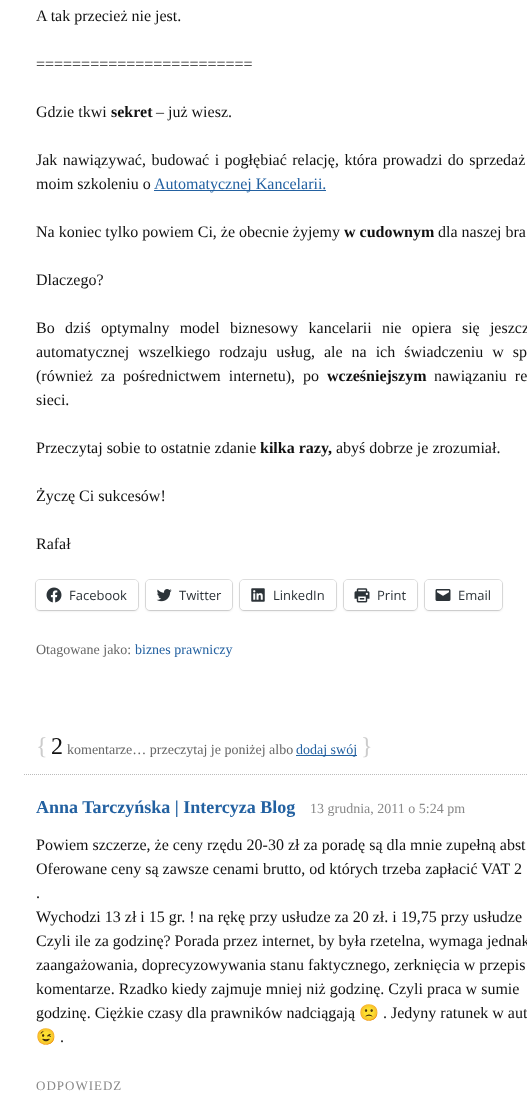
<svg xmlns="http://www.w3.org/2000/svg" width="527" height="1113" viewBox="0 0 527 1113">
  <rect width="100%" height="100%" fill="rgb(255,255,255)"/>
  <g font-family="Liberation Serif" font-size="16" fill="rgb(17,17,17)">
    <text x="36" y="21">A tak przecież nie jest.</text>
    <text x="36" y="69">========================</text>
    <text x="36" y="117">Gdzie tkwi</text>
  </g>
  <text x="111" y="117" font-family="Liberation Serif" font-size="16" font-weight="bold" fill="rgb(17,17,17)">sekret</text>
  <g font-family="Liberation Serif" font-size="16" fill="rgb(17,17,17)">
    <text x="156" y="117">– już wiesz.</text>
    <text>
      <tspan x="36" y="165" word-spacing="1.5">Jak nawiązywać, budować i pogłębiać relację, która prowadzi do sprzedaż</tspan>
      <tspan x="36" y="189">moim szkoleniu o</tspan>
    </text>
  </g>
  <rect x="154" y="190" width="172" height="1" fill="rgb(35,97,161)"/>
  <text x="154" y="189" font-family="Liberation Serif" font-size="16" fill="rgb(35,97,161)">Automatycznej Kancelarii.</text>
  <text x="36" y="237" font-family="Liberation Serif" font-size="16" fill="rgb(17,17,17)">Na koniec tylko powiem Ci, że obecnie żyjemy</text>
  <text x="344" y="237" font-family="Liberation Serif" font-size="16" font-weight="bold" fill="rgb(17,17,17)">w cudownym</text>
  <g font-family="Liberation Serif" font-size="16" fill="rgb(17,17,17)">
    <text x="438" y="237">dla naszej bra</text>
    <text x="36" y="285">Dlaczego?</text>
    <text>
      <tspan x="36" y="333" word-spacing="6.25">Bo dziś optymalny model biznesowy kancelarii nie opiera się jeszcz</tspan>
      <tspan x="36" y="357" word-spacing="5">automatycznej wszelkiego rodzaju usług, ale na ich świadczeniu w sp</tspan>
      <tspan x="36" y="381" word-spacing="4">(również za pośrednictwem internetu), po</tspan>
    </text>
  </g>
  <text x="327" y="381" font-family="Liberation Serif" font-size="16" font-weight="bold" fill="rgb(17,17,17)">wcześniejszym</text>
  <g font-family="Liberation Serif" font-size="16" fill="rgb(17,17,17)">
    <text x="434" y="381" word-spacing="4">nawiązaniu re</text>
    <text x="36" y="405">sieci.</text>
    <text x="36" y="453">Przeczytaj sobie to ostatnie zdanie</text>
  </g>
  <text x="260" y="453" font-family="Liberation Serif" font-size="16" font-weight="bold" fill="rgb(17,17,17)">kilka razy,</text>
  <g font-family="Liberation Serif" font-size="16" fill="rgb(17,17,17)">
    <text x="336" y="453">abyś dobrze je zrozumiał.</text>
    <text x="36" y="501">Życzę Ci sukcesów!</text>
    <text x="36" y="549">Rafał</text>
  </g>
  <rect x="35.5" y="579.5" width="103" height="31" rx="4.5" fill="none" stroke="rgb(224,224,224)"/>
  <rect x="36" y="581" width="102" height="30" rx="4" fill="rgba(0,0,0,0.12)" filter="blur(1px)"/>
  <rect x="36" y="580" width="102" height="30" rx="4" fill="rgb(255,255,255)"/>
  <image x="46" y="587" width="16" height="16" href="pic1.png"/>
  <text x="69" y="600" font-family="Open Sans" font-size="13" fill="rgb(44,51,56)">Facebook</text>
  <rect x="145.5" y="579.5" width="87" height="31" rx="4.5" fill="none" stroke="rgb(224,224,224)"/>
  <rect x="146" y="581" width="86" height="30" rx="4" fill="rgba(0,0,0,0.12)" filter="blur(1px)"/>
  <rect x="146" y="580" width="86" height="30" rx="4" fill="rgb(255,255,255)"/>
  <image x="156" y="589" width="16" height="13" href="pic2.png"/>
  <text x="179" y="600" font-family="Open Sans" font-size="13" fill="rgb(44,51,56)">Twitter</text>
  <rect x="239.5" y="579.5" width="97" height="31" rx="4.5" fill="none" stroke="rgb(224,224,224)"/>
  <rect x="240" y="581" width="96" height="30" rx="4" fill="rgba(0,0,0,0.12)" filter="blur(1px)"/>
  <rect x="240" y="580" width="96" height="30" rx="4" fill="rgb(255,255,255)"/>
  <image x="251" y="588" width="14" height="14" href="pic3.png"/>
  <text x="273" y="600" font-family="Open Sans" font-size="13" fill="rgb(44,51,56)">LinkedIn</text>
  <rect x="343.5" y="579.5" width="74" height="31" rx="4.5" fill="none" stroke="rgb(224,224,224)"/>
  <rect x="344" y="581" width="73" height="30" rx="4" fill="rgba(0,0,0,0.12)" filter="blur(1px)"/>
  <rect x="344" y="580" width="73" height="30" rx="4" fill="rgb(255,255,255)"/>
  <image x="354" y="588" width="16" height="15" href="pic4.png"/>
  <text x="377" y="600" font-family="Open Sans" font-size="13" fill="rgb(44,51,56)">Print</text>
  <rect x="424.5" y="579.5" width="78" height="31" rx="4.5" fill="none" stroke="rgb(224,224,224)"/>
  <rect x="425" y="581" width="77" height="30" rx="4" fill="rgba(0,0,0,0.12)" filter="blur(1px)"/>
  <rect x="425" y="580" width="77" height="30" rx="4" fill="rgb(255,255,255)"/>
  <image x="435" y="589" width="16" height="12" href="pic5.png"/>
  <text x="458" y="600" font-family="Open Sans" font-size="13" fill="rgb(44,51,56)">Email</text>
  <text x="36" y="654" font-family="Liberation Serif" font-size="14" fill="rgb(102,102,102)">Otagowane jako:</text>
  <text x="135" y="654" font-family="Liberation Serif" font-size="14" fill="rgb(35,97,161)">biznes prawniczy</text>
  <text x="36" y="754" font-family="Liberation Serif" font-size="24" fill="rgb(204,204,204)">{</text>
  <text x="51" y="754" font-family="Liberation Serif" font-size="24" fill="rgb(17,17,17)">2</text>
  <text x="67" y="754" font-family="Liberation Serif" font-size="14" fill="rgb(102,102,102)">komentarze… przeczytaj je poniżej albo</text>
  <rect x="296" y="755" width="61" height="1" fill="rgb(35,97,161)"/>
  <text x="296" y="754" font-family="Liberation Serif" font-size="14" fill="rgb(35,97,161)">dodaj swój</text>
  <text x="361" y="754" font-family="Liberation Serif" font-size="24" fill="rgb(204,204,204)">}</text>
  <path d="M24 774.5H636" fill="none" stroke="rgb(187,187,187)" stroke-dasharray="1 1"/>
  <text x="36" y="813" font-family="Liberation Serif" font-size="18" font-weight="bold" fill="rgb(35,97,161)">Anna Tarczyńska | Intercyza Blog</text>
  <text x="310" y="813" font-family="Liberation Serif" font-size="14" fill="rgb(136,136,136)">13 grudnia, 2011 o 5:24 pm</text>
  <g font-family="Liberation Serif" font-size="16" fill="rgb(17,17,17)">
    <text>
      <tspan x="36" y="850">Powiem szczerze, że ceny rzędu 20-30 zł za poradę są dla mnie zupełną abst</tspan>
      <tspan x="36" y="874">Oferowane ceny są zawsze cenami brutto, od których trzeba zapłacić VAT 2</tspan>
      <tspan x="36" y="898">.</tspan>
      <tspan x="36" y="922">Wychodzi 13 zł i 15 gr. ! na rękę przy usłudze za 20 zł. i 19,75 przy usłudze</tspan>
      <tspan x="36" y="946">Czyli ile za godzinę? Porada przez internet, by była rzetelna, wymaga jednak</tspan>
      <tspan x="36" y="970">zaangażowania, doprecyzowywania stanu faktycznego, zerknięcia w przepis</tspan>
      <tspan x="36" y="994">komentarze. Rzadko kiedy zajmuje mniej niż godzinę. Czyli praca w sumie</tspan>
      <tspan x="36" y="1018">godzinę. Ciężkie czasy dla prawników nadciągają</tspan>
    </text>
  </g>
  <text x="359" y="1018" font-family="Noto Color Emoji" font-size="16" fill="rgb(17,17,17)">🙁</text>
  <text x="383" y="1018" font-family="Liberation Serif" font-size="16" fill="rgb(17,17,17)">. Jedyny ratunek w aut</text>
  <text x="36" y="1042" font-family="Noto Color Emoji" font-size="16" fill="rgb(17,17,17)">😉</text>
  <text x="60" y="1042" font-family="Liberation Serif" font-size="16" fill="rgb(17,17,17)">.</text>
  <text x="36" y="1090" font-family="Liberation Serif" font-size="13" letter-spacing="1" fill="rgb(136,136,136)">ODPOWIEDZ</text>
</svg>
